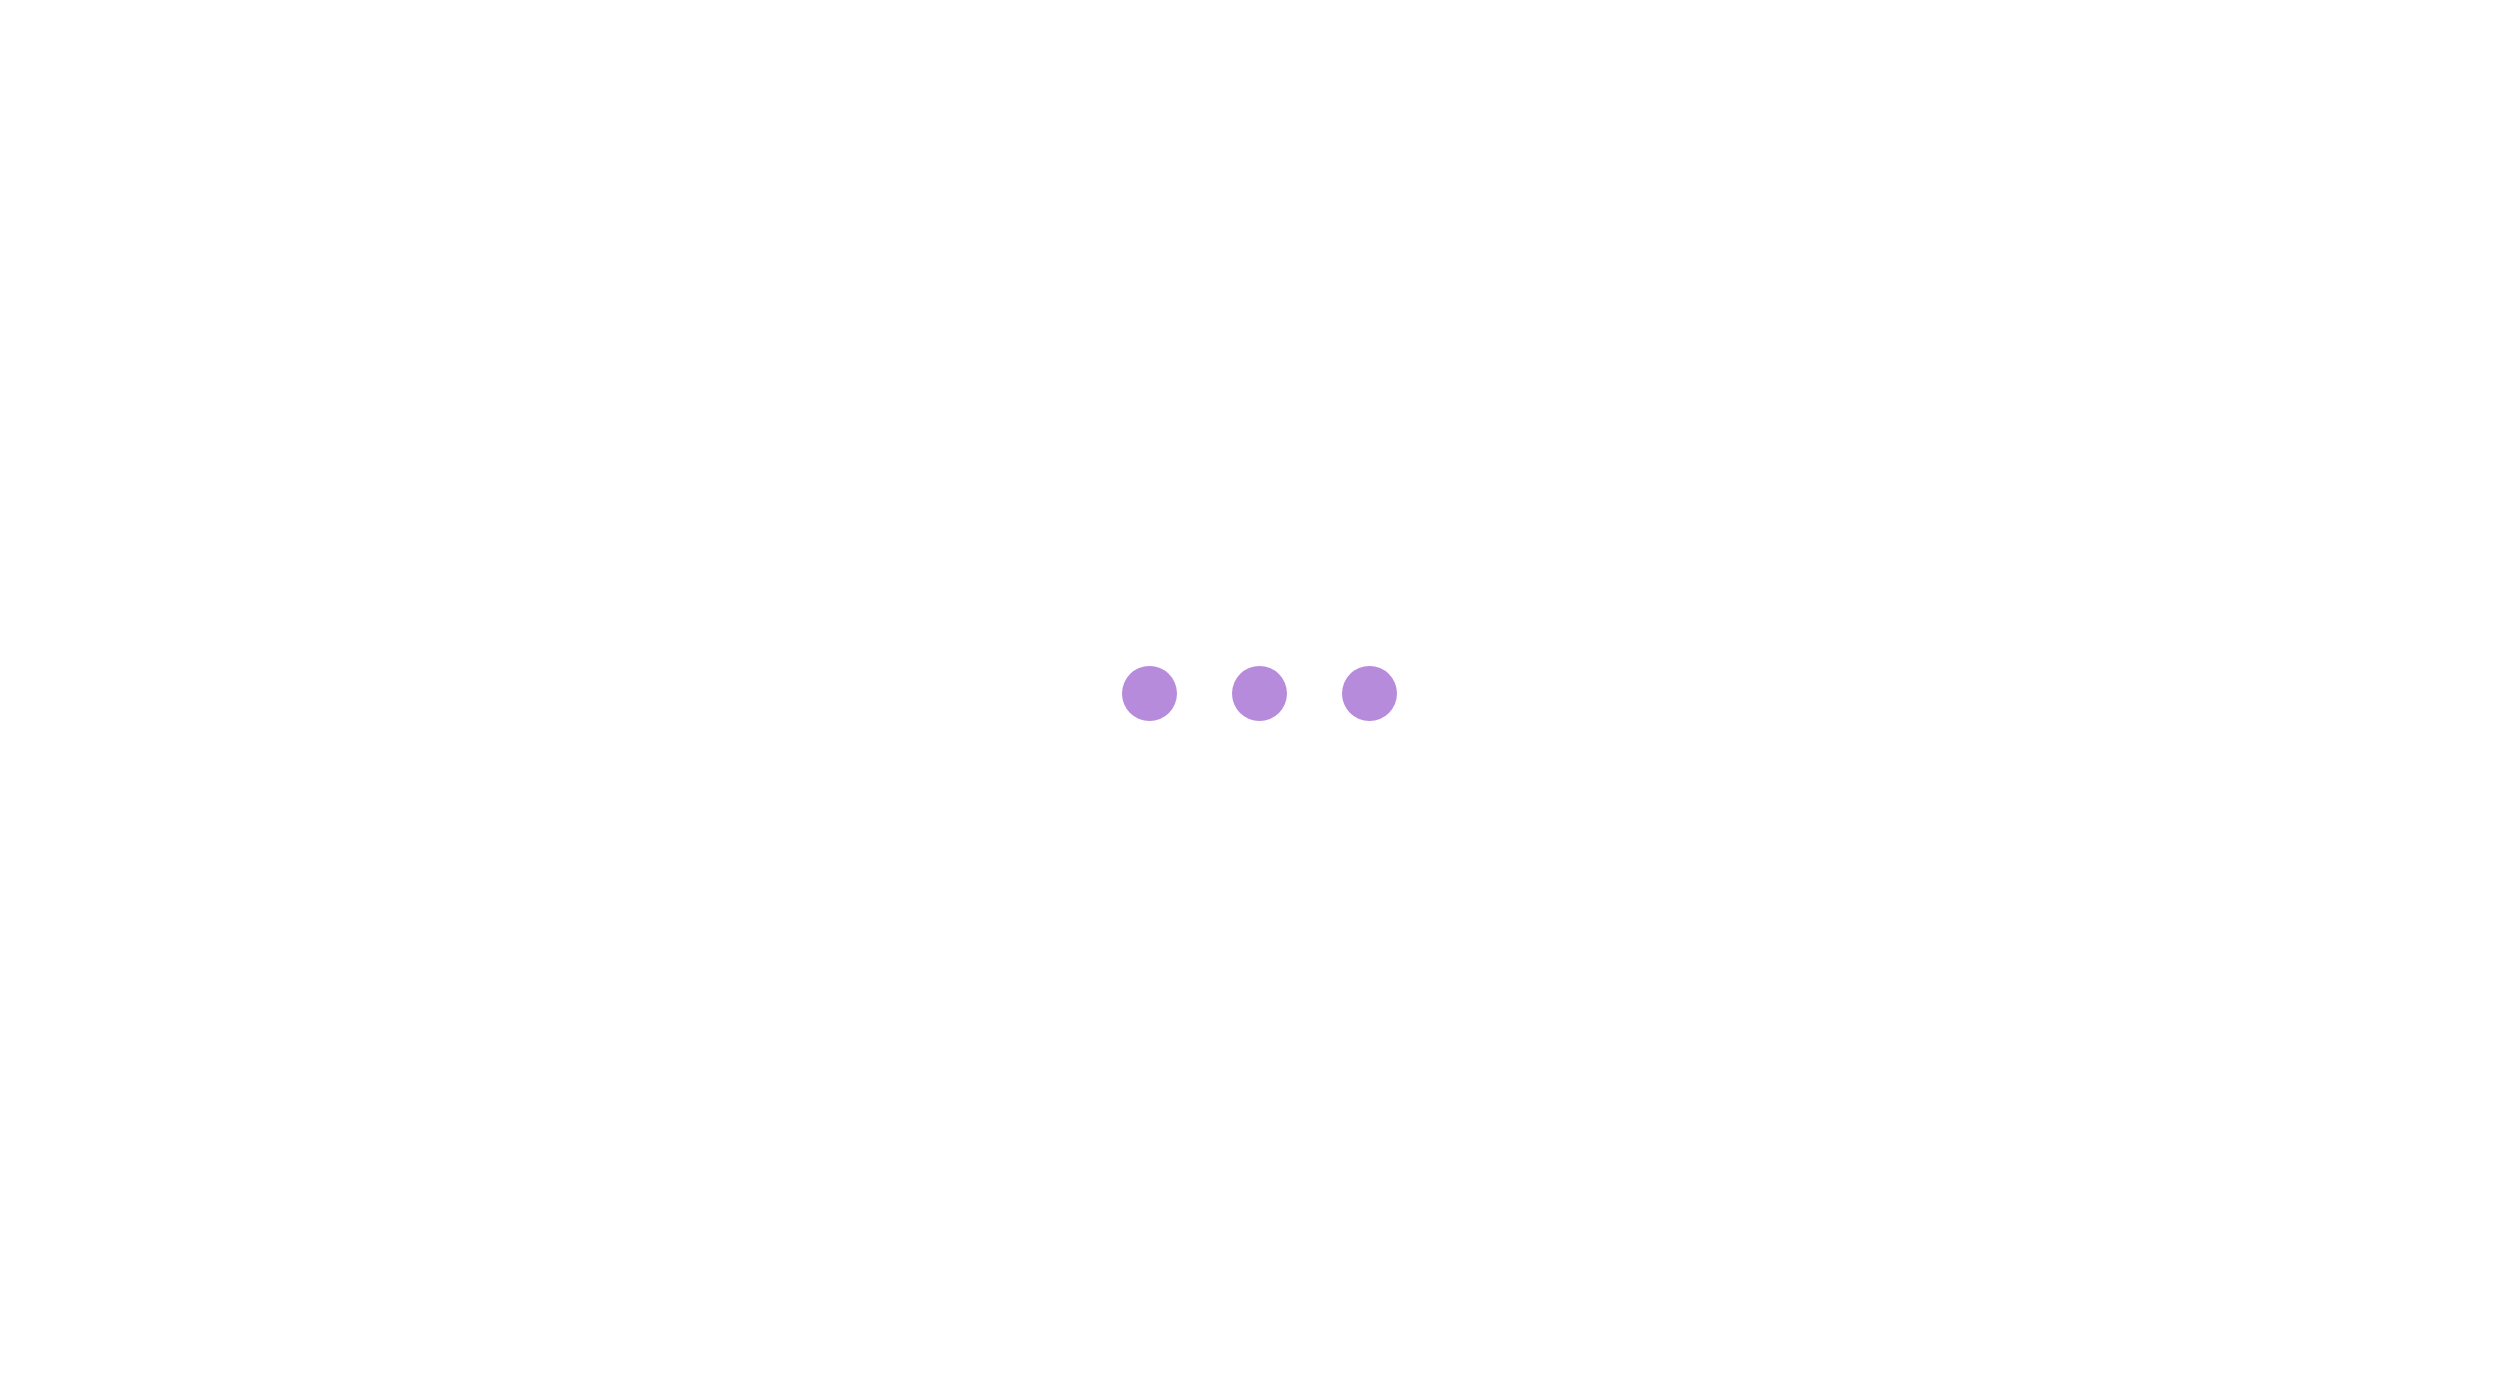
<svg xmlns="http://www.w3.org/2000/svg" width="2518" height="1389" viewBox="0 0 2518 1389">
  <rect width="100%" height="100%" fill="rgb(255,255,255)"/>
  <circle cx="1149.5" cy="693.5" r="27.5" fill="rgb(182,139,219)"/>
  <circle cx="1259.5" cy="693.5" r="27.5" fill="rgb(182,139,219)"/>
  <circle cx="1369.5" cy="693.5" r="27.5" fill="rgb(182,139,219)"/>
</svg>
